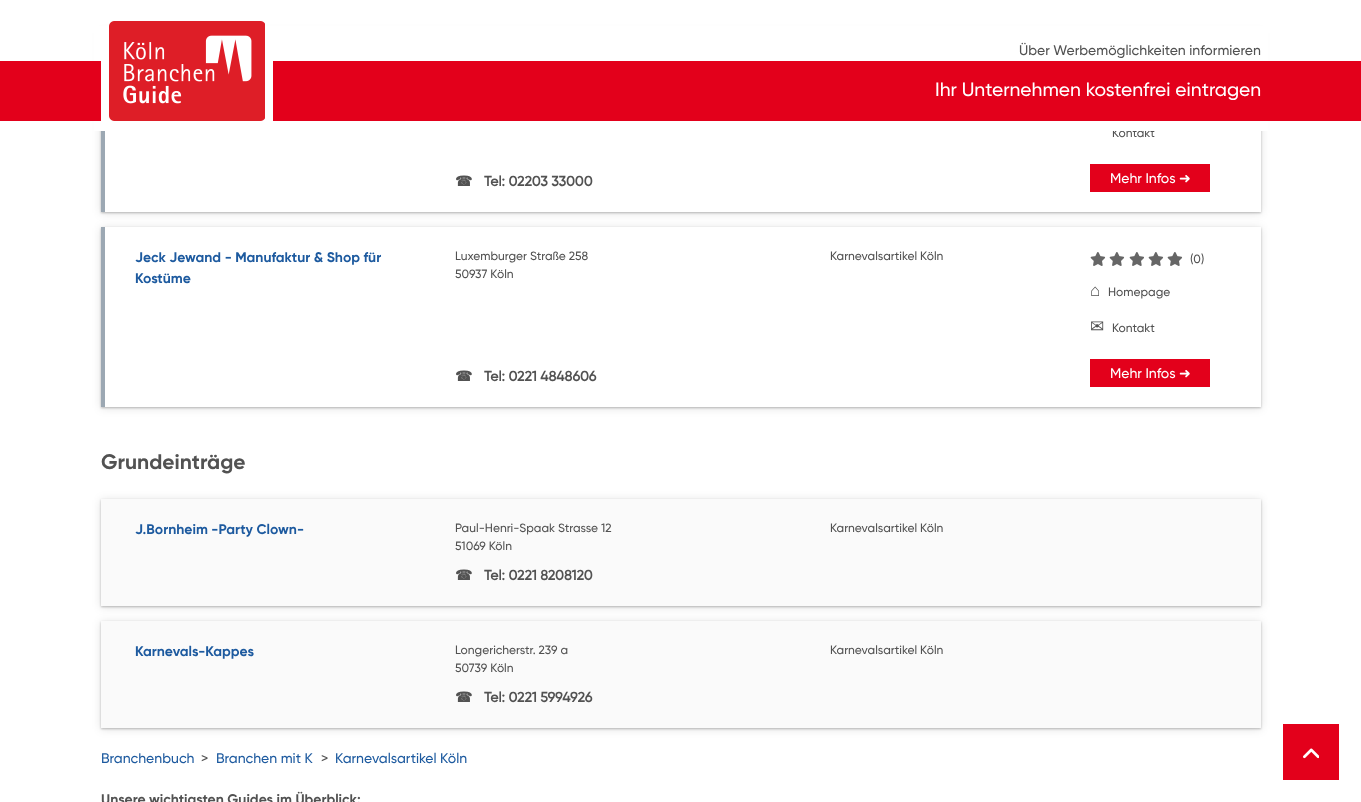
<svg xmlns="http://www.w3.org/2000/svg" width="1361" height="802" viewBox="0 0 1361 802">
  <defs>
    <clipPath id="clip1"><path d="M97 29H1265V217H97ZM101 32H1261V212H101Z" clip-rule="evenodd"/></clipPath>
    <clipPath id="clip2"><path d="M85 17H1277V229H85ZM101 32H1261V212H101Z" clip-rule="evenodd"/></clipPath>
    <clipPath id="clip3"><path d="M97 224H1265V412H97ZM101 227H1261V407H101Z" clip-rule="evenodd"/></clipPath>
    <clipPath id="clip4"><path d="M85 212H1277V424H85ZM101 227H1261V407H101Z" clip-rule="evenodd"/></clipPath>
  </defs>
  <rect width="100%" height="100%" fill="rgb(255,255,255)"/>
  <g clip-path="url(#clip1)">
    <rect x="101" y="33" width="1160" height="180" fill="rgba(0,0,0,0.24)" filter="blur(1px)"/>
  </g>
  <g clip-path="url(#clip2)">
    <rect x="101" y="33" width="1160" height="180" fill="rgba(0,0,0,0.12)" filter="blur(5px)"/>
  </g>
  <text x="1112" y="137" font-family="Gilroy" font-size="12" font-weight="500" fill="rgb(82,82,82)">Kontakt</text>
  <rect x="94" y="26" width="1174" height="105" fill="rgb(255,255,255)"/>
  <text x="1019" y="55" font-family="Gilroy" font-size="14" font-weight="500" fill="rgb(82,82,82)">Über Werbemöglichkeiten informieren</text>
  <rect x="0" y="61" width="1361" height="60" fill="rgb(227,0,27)"/>
  <rect x="101" y="61" width="172" height="60" fill="rgb(255,255,255)"/>
  <image x="109" y="21" width="156" height="100" href="pic1.png"/>
  <text x="935" y="96" font-family="Gilroy" font-size="19.25" font-weight="500" fill="rgb(255,255,255)">Ihr Unternehmen kostenfrei eintragen</text>
  <rect x="101" y="131" width="4" height="81" fill="rgb(156,168,179)"/>
  <text x="455" y="186" font-family="DejaVu Sans" font-size="14" font-weight="bold" fill="rgb(82,82,82)">☎</text>
  <text x="484" y="186" font-family="'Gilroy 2'" font-size="14" font-weight="bold" fill="rgb(82,82,82)">Tel: 02203 33000</text>
  <rect x="1090" y="164" width="120" height="28" fill="rgb(227,0,27)"/>
  <text x="1110" y="183" font-family="Gilroy" font-size="14" font-weight="500" fill="rgb(255,255,255)">Mehr Infos</text>
  <text x="1179" y="183" font-family="DejaVu Sans" font-size="14" fill="rgb(255,255,255)">➜</text>
  <g clip-path="url(#clip3)">
    <rect x="101" y="228" width="1160" height="180" fill="rgba(0,0,0,0.24)" filter="blur(1px)"/>
  </g>
  <g clip-path="url(#clip4)">
    <rect x="101" y="228" width="1160" height="180" fill="rgba(0,0,0,0.12)" filter="blur(5px)"/>
  </g>
  <rect x="101" y="227" width="4" height="180" fill="rgb(156,168,179)"/>
  <g font-family="Gilroy" font-size="14" font-weight="bold" fill="rgb(29,90,159)">
    <text>
      <tspan x="135" y="262">Jeck Jewand - Manufaktur &amp; Shop für</tspan>
      <tspan x="135" y="283">Kostüme</tspan>
    </text>
  </g>
  <g font-family="Gilroy" font-size="12" font-weight="500" fill="rgb(82,82,82)">
    <text>
      <tspan x="455" y="260">Luxemburger Straße 258</tspan>
      <tspan x="455" y="278">50937 Köln</tspan>
    </text>
  </g>
  <text x="455" y="381" font-family="DejaVu Sans" font-size="14" font-weight="bold" fill="rgb(82,82,82)">☎</text>
  <text x="484" y="381" font-family="'Gilroy 2'" font-size="14" font-weight="bold" fill="rgb(82,82,82)">Tel: 0221 4848606</text>
  <text x="830" y="260" font-family="Gilroy" font-size="12" font-weight="500" fill="rgb(82,82,82)">Karnevalsartikel Köln</text>
  <image x="1090" y="252" width="16" height="14" href="pic2.png"/>
  <image x="1109" y="252" width="16" height="14" href="pic2.png"/>
  <image x="1129" y="252" width="15" height="14" href="pic3.png"/>
  <image x="1148" y="252" width="16" height="14" href="pic2.png"/>
  <image x="1167" y="252" width="16" height="14" href="pic2.png"/>
  <text x="1190" y="263" font-family="Gilroy" font-size="12" font-weight="500" fill="rgb(82,82,82)">(0)</text>
  <text x="1090" y="296" font-family="Liberation Sans" font-size="17" fill="rgb(82,82,82)">⌂</text>
  <text x="1108" y="296" font-family="Gilroy" font-size="12" font-weight="500" fill="rgb(82,82,82)">Homepage</text>
  <text x="1090" y="332" font-family="DejaVu Sans" font-size="17" fill="rgb(82,82,82)">✉</text>
  <text x="1112" y="332" font-family="Gilroy" font-size="12" font-weight="500" fill="rgb(82,82,82)">Kontakt</text>
  <rect x="1090" y="359" width="120" height="28" fill="rgb(227,0,27)"/>
  <text x="1110" y="378" font-family="Gilroy" font-size="14" font-weight="500" fill="rgb(255,255,255)">Mehr Infos</text>
  <text x="1179" y="378" font-family="DejaVu Sans" font-size="14" fill="rgb(255,255,255)">➜</text>
  <text x="101" y="469" font-family="Gilroy" font-size="21" font-weight="bold" fill="rgb(82,82,82)">Grundeinträge</text>
  <rect x="101" y="500" width="1160" height="107" fill="rgba(0,0,0,0.24)" filter="blur(1px)"/>
  <rect x="101" y="500" width="1160" height="107" fill="rgba(0,0,0,0.12)" filter="blur(5px)"/>
  <rect x="101" y="499" width="1160" height="107" fill="rgb(250,250,250)"/>
  <text x="135" y="534" font-family="Gilroy" font-size="14" font-weight="bold" fill="rgb(29,90,159)">J.Bornheim -Party Clown-</text>
  <g font-family="Gilroy" font-size="12" font-weight="500" fill="rgb(82,82,82)">
    <text>
      <tspan x="455" y="532">Paul-Henri-Spaak Strasse 12</tspan>
      <tspan x="455" y="550">51069 Köln</tspan>
    </text>
  </g>
  <text x="455" y="580" font-family="DejaVu Sans" font-size="14" font-weight="bold" fill="rgb(82,82,82)">☎</text>
  <text x="484" y="580" font-family="'Gilroy 2'" font-size="14" font-weight="bold" fill="rgb(82,82,82)">Tel: 0221 8208120</text>
  <text x="830" y="532" font-family="Gilroy" font-size="12" font-weight="500" fill="rgb(82,82,82)">Karnevalsartikel Köln</text>
  <rect x="101" y="622" width="1160" height="107" fill="rgba(0,0,0,0.24)" filter="blur(1px)"/>
  <rect x="101" y="622" width="1160" height="107" fill="rgba(0,0,0,0.12)" filter="blur(5px)"/>
  <rect x="101" y="621" width="1160" height="107" fill="rgb(250,250,250)"/>
  <text x="135" y="656" font-family="Gilroy" font-size="14" font-weight="bold" fill="rgb(29,90,159)">Karnevals-Kappes</text>
  <g font-family="Gilroy" font-size="12" font-weight="500" fill="rgb(82,82,82)">
    <text>
      <tspan x="455" y="654">Longericherstr. 239 a</tspan>
      <tspan x="455" y="672">50739 Köln</tspan>
    </text>
  </g>
  <text x="455" y="702" font-family="DejaVu Sans" font-size="14" font-weight="bold" fill="rgb(82,82,82)">☎</text>
  <text x="484" y="702" font-family="'Gilroy 2'" font-size="14" font-weight="bold" fill="rgb(82,82,82)">Tel: 0221 5994926</text>
  <text x="830" y="654" font-family="Gilroy" font-size="12" font-weight="500" fill="rgb(82,82,82)">Karnevalsartikel Köln</text>
  <text x="101" y="763" font-family="Gilroy" font-size="14" font-weight="500" fill="rgb(29,90,159)">Branchenbuch</text>
  <text x="201" y="763" font-family="Gilroy" font-size="14" font-weight="500" fill="rgb(82,82,82)">&gt;</text>
  <text x="216" y="763" font-family="Gilroy" font-size="14" font-weight="500" fill="rgb(29,90,159)">Branchen mit K</text>
  <text x="321" y="763" font-family="Gilroy" font-size="14" font-weight="500" fill="rgb(82,82,82)">&gt;</text>
  <text x="335" y="763" font-family="Gilroy" font-size="14" font-weight="500" fill="rgb(29,90,159)">Karnevalsartikel Köln</text>
  <rect x="1283" y="724" width="56" height="56" fill="rgb(227,0,27)"/>
  <image x="1303" y="748" width="16" height="11" href="pic4.png"/>
  <text x="101" y="804" font-family="Gilroy" font-size="14" font-weight="bold" fill="rgb(82,82,82)">Unsere wichtigsten Guides im Überblick:</text>
</svg>
